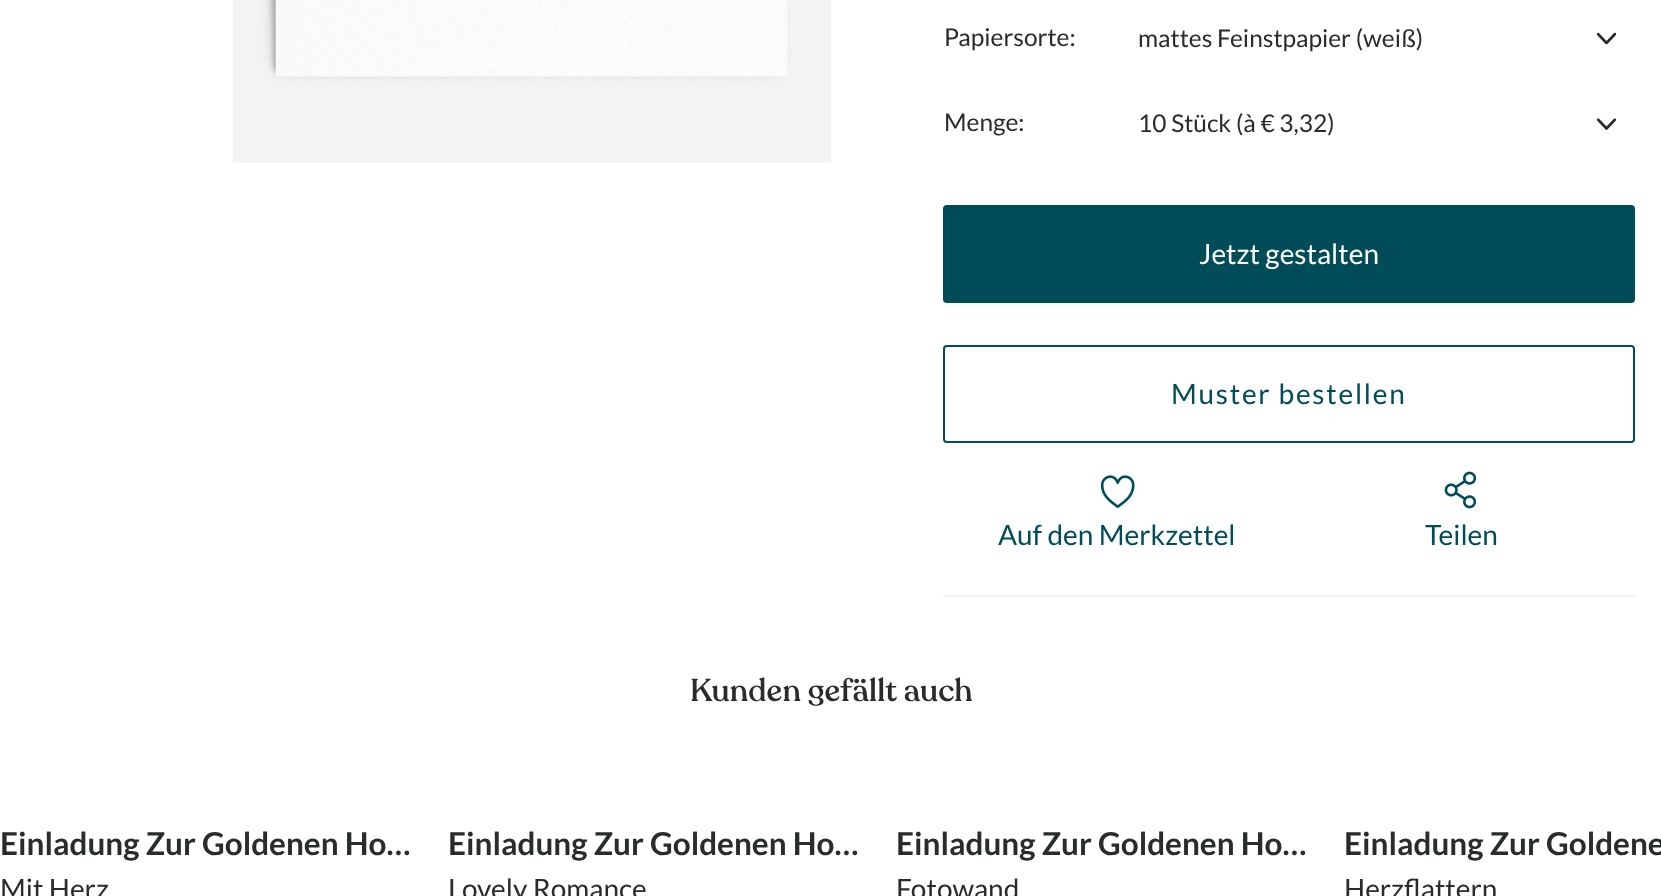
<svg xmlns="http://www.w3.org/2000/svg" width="1661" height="896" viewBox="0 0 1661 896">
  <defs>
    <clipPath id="clip1"><path d="M1597 32.5H1616V44.5H1597Z"/></clipPath>
    <clipPath id="clip2"><path d="M1597 118.5H1616V130H1597Z"/></clipPath>
  </defs>
  <rect width="100%" height="100%" fill="rgb(255,255,255)"/>
  <image x="233" y="0" width="598" height="163" href="pic1.png"/>
  <g font-family="Lato" font-size="24.5" fill="rgb(41,44,44)">
    <text x="944" y="46">Papiersorte:</text>
    <text x="1138" y="47">mattes Feinstpapier (weiß)</text>
  </g>
  <g clip-path="url(#clip1)">
    <path d="M1615 34L1606.5 43L1598 34" fill="none" stroke="rgb(41,44,44)" stroke-width="2.6" stroke-linecap="round" stroke-linejoin="round"/>
  </g>
  <g font-family="Lato" font-size="24.5" fill="rgb(41,44,44)">
    <text x="944" y="131">Menge:</text>
    <text x="1138" y="132">10 Stück (à € 3,32)</text>
  </g>
  <g clip-path="url(#clip2)">
    <path d="M1615 119.5L1606.5 128.5L1598 119.5" fill="none" stroke="rgb(41,44,44)" stroke-width="2.6" stroke-linecap="round" stroke-linejoin="round"/>
  </g>
  <rect x="943" y="205" width="692" height="98" rx="4" fill="rgb(0,76,88)"/>
  <text x="1199" y="264" font-family="Lato" font-size="28" fill="rgb(255,255,255)">Jetzt gestalten</text>
  <rect x="944" y="346" width="690" height="96" rx="3" fill="none" stroke="rgb(0,76,88)" stroke-width="2"/>
  <text x="1171" y="404" font-family="Lato" font-size="28" letter-spacing="1.75" fill="rgb(0,76,88)">Muster bestellen</text>
  <rect x="943" y="595" width="692" height="2" fill="rgb(244,244,244)"/>
  <image x="1100" y="475" width="35" height="33" href="pic2.png"/>
  <text x="998" y="545" font-family="Lato" font-size="28" fill="rgb(0,76,88)">Auf den Merkzettel</text>
  <image x="1444" y="471" width="33" height="38" href="pic3.png"/>
  <text x="1425" y="545" font-family="Lato" font-size="28" fill="rgb(0,76,88)">Teilen</text>
  <text x="690" y="701" font-family="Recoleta" font-size="31.5" font-weight="500" fill="rgb(41,44,44)">Kunden gefällt auch</text>
  <text x="0" y="855" font-family="Lato" font-size="31.5" font-weight="bold" fill="rgb(41,44,44)">Einladung Zur Goldenen Ho…</text>
  <text x="0" y="899" font-family="Lato" font-size="28" fill="rgb(41,44,44)">Mit Herz</text>
  <text x="448" y="855" font-family="Lato" font-size="31.5" font-weight="bold" fill="rgb(41,44,44)">Einladung Zur Goldenen Ho…</text>
  <text x="448" y="899" font-family="Lato" font-size="28" fill="rgb(41,44,44)">Lovely Romance</text>
  <text x="896" y="855" font-family="Lato" font-size="31.5" font-weight="bold" fill="rgb(41,44,44)">Einladung Zur Goldenen Ho…</text>
  <text x="896" y="899" font-family="Lato" font-size="28" fill="rgb(41,44,44)">Fotowand</text>
  <text x="1344" y="855" font-family="Lato" font-size="31.5" font-weight="bold" fill="rgb(41,44,44)">Einladung Zur Goldene</text>
  <text x="1344" y="899" font-family="Lato" font-size="28" fill="rgb(41,44,44)">Herzflattern</text>
</svg>
